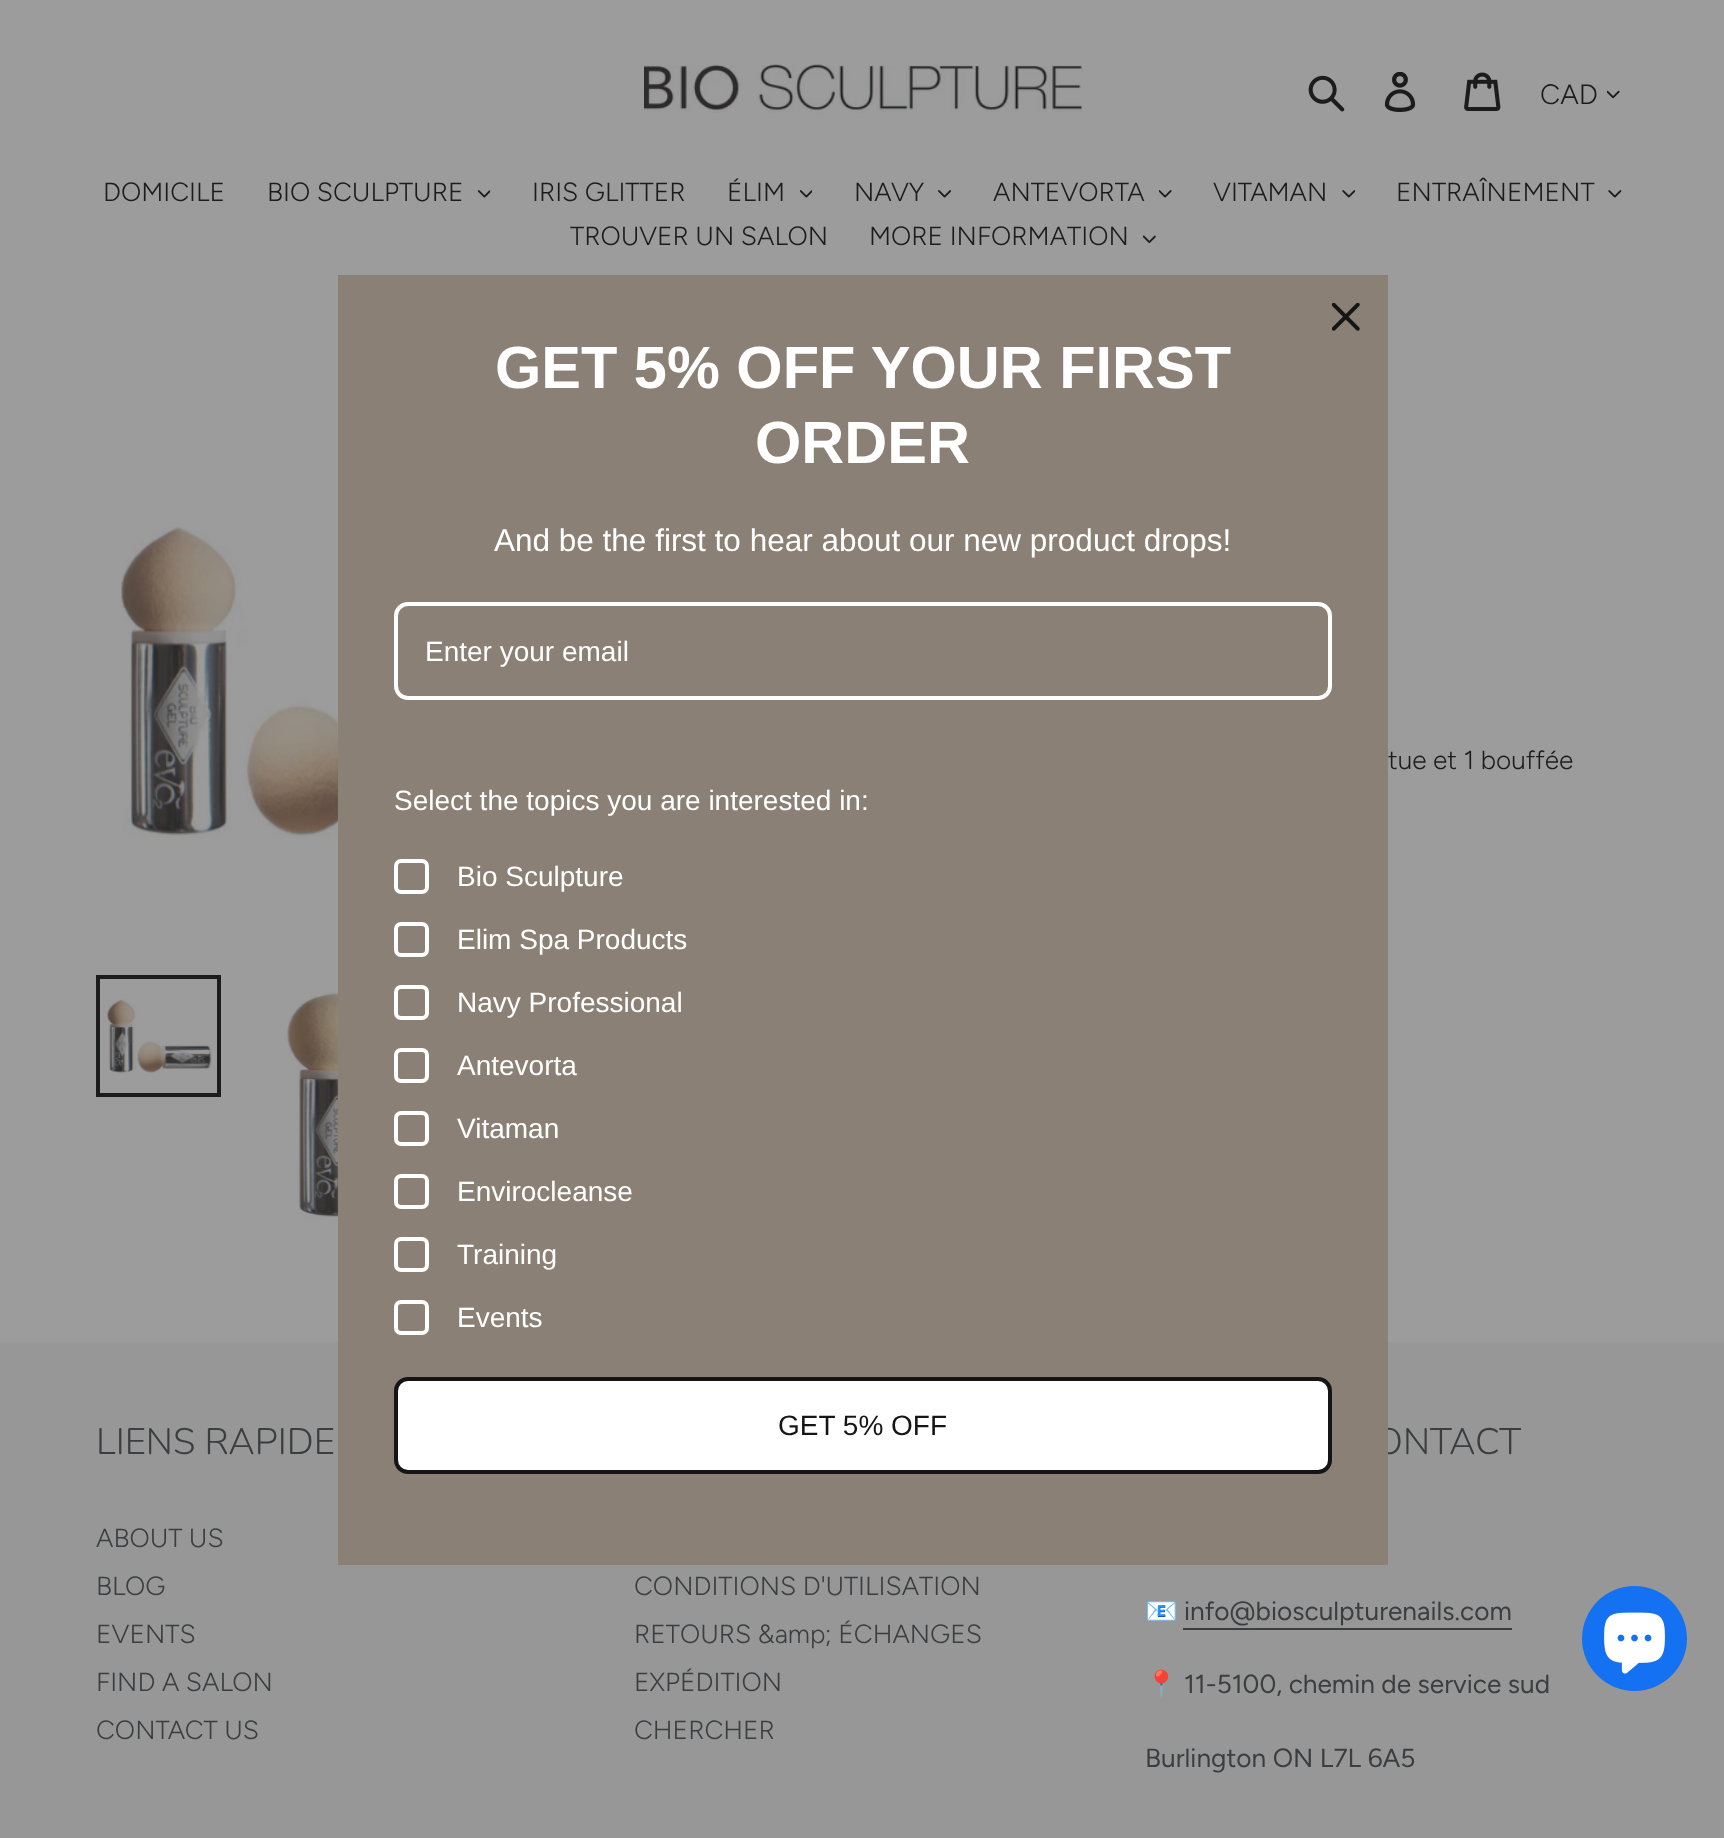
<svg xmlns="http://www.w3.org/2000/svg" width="1724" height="1838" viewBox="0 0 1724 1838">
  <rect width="100%" height="100%" fill="rgb(156,156,156)"/>
  <image x="644" y="64" width="438" height="49" href="pic1.png"/>
  <image x="1308" y="75" width="37" height="37" href="pic2.png"/>
  <image x="1384" y="72" width="32" height="40" href="pic3.png"/>
  <image x="1464" y="72" width="37" height="39" href="pic4.png"/>
  <text x="1540" y="104" font-family="Figtree" font-size="28" font-weight="300" fill="rgb(28,28,28)">CAD</text>
  <image x="1607" y="90" width="13" height="9" href="pic5.png"/>
  <g font-family="Figtree" font-size="26.25" font-weight="300" fill="rgb(28,28,28)">
    <text x="103" y="201">DOMICILE</text>
    <text x="267" y="201">BIO SCULPTURE</text>
  </g>
  <image x="478" y="190" width="12" height="8" href="pic6.png"/>
  <g font-family="Figtree" font-size="26.25" font-weight="300" fill="rgb(28,28,28)">
    <text x="532" y="201">IRIS GLITTER</text>
    <text x="727" y="201">ÉLIM</text>
  </g>
  <image x="800" y="190" width="12" height="8" href="pic6.png"/>
  <text x="854" y="201" font-family="Figtree" font-size="26.25" font-weight="300" fill="rgb(28,28,28)">NAVY</text>
  <image x="938" y="190" width="13" height="8" href="pic7.png"/>
  <text x="993" y="201" font-family="Figtree" font-size="26.25" font-weight="300" fill="rgb(28,28,28)">ANTEVORTA</text>
  <image x="1159" y="190" width="13" height="8" href="pic8.png"/>
  <text x="1213" y="201" font-family="Figtree" font-size="26.25" font-weight="300" fill="rgb(28,28,28)">VITAMAN</text>
  <image x="1342" y="190" width="13" height="8" href="pic9.png"/>
  <text x="1396" y="201" font-family="Figtree" font-size="26.25" font-weight="300" fill="rgb(28,28,28)">ENTRAÎNEMENT</text>
  <image x="1608" y="190" width="14" height="8" href="pic10.png"/>
  <g font-family="Figtree" font-size="26.25" font-weight="300" fill="rgb(28,28,28)">
    <text x="570" y="245">TROUVER UN SALON</text>
    <text x="869" y="245">MORE INFORMATION</text>
  </g>
  <image x="1143" y="235" width="13" height="8" href="pic11.png"/>
  <rect x="0" y="1342" width="1724" height="496" fill="rgb(151,151,151)"/>
  <text x="1375" y="1454" font-family="Nunito" font-size="36.75" font-weight="300" fill="rgb(59,61,63)">ONTACT</text>
  <rect x="338" y="275" width="1050" height="1290" fill="rgb(139,128,117)"/>
  <image x="1332" y="303" width="28" height="28" href="pic12.png"/>
  <g font-family="Liberation Sans" font-size="59.5" font-weight="bold" fill="rgb(255,255,255)">
    <text x="495" y="388">GET 5% OFF YOUR FIRST</text>
    <text x="755" y="463">ORDER</text>
  </g>
  <text x="494" y="551" font-family="Liberation Sans" font-size="31.5" fill="rgb(255,255,255)">And be the first to hear about our new product drops!</text>
  <rect x="396" y="604" width="934" height="94" rx="12" fill="none" stroke="rgb(255,255,255)" stroke-width="4"/>
  <g font-family="Liberation Sans" font-size="28" fill="rgb(255,255,255)">
    <text x="425" y="661">Enter your email</text>
    <text x="394" y="810">Select the topics you are interested in:</text>
  </g>
  <rect x="396" y="861" width="31" height="31" rx="5" fill="none" stroke="rgb(255,255,255)" stroke-width="4"/>
  <text x="457" y="886" font-family="Liberation Sans" font-size="28" fill="rgb(255,255,255)">Bio Sculpture</text>
  <rect x="396" y="924" width="31" height="31" rx="5" fill="none" stroke="rgb(255,255,255)" stroke-width="4"/>
  <text x="457" y="949" font-family="Liberation Sans" font-size="28" fill="rgb(255,255,255)">Elim Spa Products</text>
  <rect x="396" y="987" width="31" height="31" rx="5" fill="none" stroke="rgb(255,255,255)" stroke-width="4"/>
  <text x="457" y="1012" font-family="Liberation Sans" font-size="28" fill="rgb(255,255,255)">Navy Professional</text>
  <rect x="396" y="1050" width="31" height="31" rx="5" fill="none" stroke="rgb(255,255,255)" stroke-width="4"/>
  <text x="457" y="1075" font-family="Liberation Sans" font-size="28" fill="rgb(255,255,255)">Antevorta</text>
  <rect x="396" y="1113" width="31" height="31" rx="5" fill="none" stroke="rgb(255,255,255)" stroke-width="4"/>
  <text x="457" y="1138" font-family="Liberation Sans" font-size="28" fill="rgb(255,255,255)">Vitaman</text>
  <rect x="396" y="1176" width="31" height="31" rx="5" fill="none" stroke="rgb(255,255,255)" stroke-width="4"/>
  <text x="457" y="1201" font-family="Liberation Sans" font-size="28" fill="rgb(255,255,255)">Envirocleanse</text>
  <rect x="396" y="1239" width="31" height="31" rx="5" fill="none" stroke="rgb(255,255,255)" stroke-width="4"/>
  <text x="457" y="1264" font-family="Liberation Sans" font-size="28" fill="rgb(255,255,255)">Training</text>
  <rect x="396" y="1302" width="31" height="31" rx="5" fill="none" stroke="rgb(255,255,255)" stroke-width="4"/>
  <text x="457" y="1327" font-family="Liberation Sans" font-size="28" fill="rgb(255,255,255)">Events</text>
  <rect x="396" y="1379" width="934" height="93" rx="12" fill="rgb(255,255,255)" stroke="rgb(21,21,21)" stroke-width="4"/>
  <text x="778" y="1435" font-family="Liberation Sans" font-size="28" fill="rgb(21,21,21)">GET 5% OFF</text>
  <image x="121" y="526" width="217" height="312" href="pic13.png"/>
  <rect x="98" y="977" width="121" height="118" fill="none" stroke="rgb(28,28,28)" stroke-width="4"/>
  <image x="107" y="999" width="105" height="74" href="pic14.png"/>
  <image x="284" y="992" width="54" height="228" href="pic15.png"/>
  <text x="1388" y="769" font-family="Figtree" font-size="26.25" font-weight="300" fill="rgb(28,28,28)">tue et 1 bouffée</text>
  <text x="96" y="1454" font-family="Nunito" font-size="36.75" font-weight="300" fill="rgb(59,61,63)">LIENS RAPIDE</text>
  <g font-family="Figtree" font-size="26.25" font-weight="300" fill="rgb(59,61,63)">
    <text>
      <tspan x="96" y="1547">ABOUT US</tspan>
      <tspan x="96" y="1595">BLOG</tspan>
      <tspan x="96" y="1643">EVENTS</tspan>
      <tspan x="96" y="1691">FIND A SALON</tspan>
      <tspan x="96" y="1739">CONTACT US</tspan>
    </text>
    <text>
      <tspan x="634" y="1595">CONDITIONS D'UTILISATION</tspan>
      <tspan x="634" y="1643">RETOURS &amp;amp; ÉCHANGES</tspan>
      <tspan x="634" y="1691">EXPÉDITION</tspan>
      <tspan x="634" y="1739">CHERCHER</tspan>
    </text>
  </g>
  <text x="1145" y="1620" font-family="Noto Color Emoji" font-size="26.25" fill="rgb(59,61,63)">📧</text>
  <text x="1184" y="1620" font-family="Figtree" font-size="26.25" fill="rgb(59,61,63)">info@biosculpturenails.com</text>
  <rect x="1183" y="1628" width="329" height="2" fill="rgb(59,61,63)"/>
  <text x="1145" y="1693" font-family="Noto Color Emoji" font-size="26.25" fill="rgb(59,61,63)">📍</text>
  <g font-family="Figtree" font-size="26.25" fill="rgb(59,61,63)">
    <text x="1184" y="1693">11-5100, chemin de service sud</text>
    <text x="1145" y="1767">Burlington ON L7L 6A5</text>
  </g>
  <circle cx="1634.5" cy="1638.5" r="52.5" fill="rgb(20,113,242)"/>
  <image x="1604" y="1612" width="61" height="62" href="pic16.png"/>
</svg>
